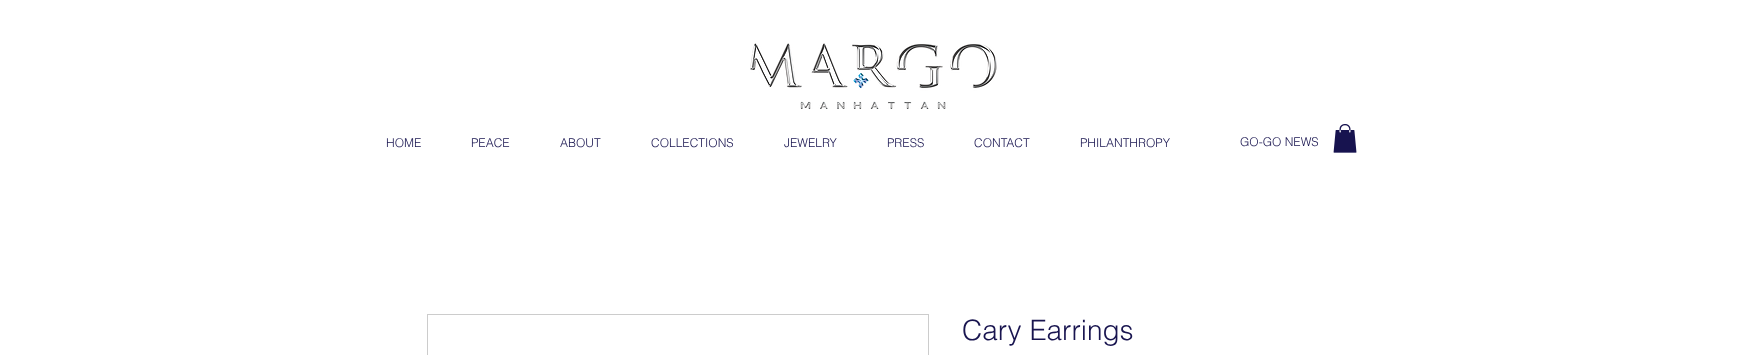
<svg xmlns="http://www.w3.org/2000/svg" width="1743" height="355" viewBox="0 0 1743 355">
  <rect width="100%" height="100%" fill="rgb(255,255,255)"/>
  <image x="750" y="43" width="247" height="66" href="pic1.png"/>
  <g font-family="helvetica" font-size="12" font-weight="300" fill="rgb(24,20,79)">
    <text x="386" y="147">HOME</text>
    <text x="471" y="147">PEACE</text>
    <text x="560" y="147">ABOUT</text>
    <text x="651" y="147">COLLECTIONS</text>
    <text x="784" y="147">JEWELRY</text>
    <text x="887" y="147">PRESS</text>
    <text x="974" y="147">CONTACT</text>
    <text x="1080" y="147">PHILANTHROPY</text>
    <text x="1240" y="146">GO-GO NEWS</text>
  </g>
  <image x="1333" y="124" width="24" height="29" href="pic2.png"/>
  <rect x="427.5" y="314.5" width="501" height="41" fill="none" stroke="rgb(204,204,204)"/>
  <text x="962" y="340" font-family="helvetica" font-size="28" font-weight="300" fill="rgb(24,20,79)">Cary Earrings</text>
</svg>
